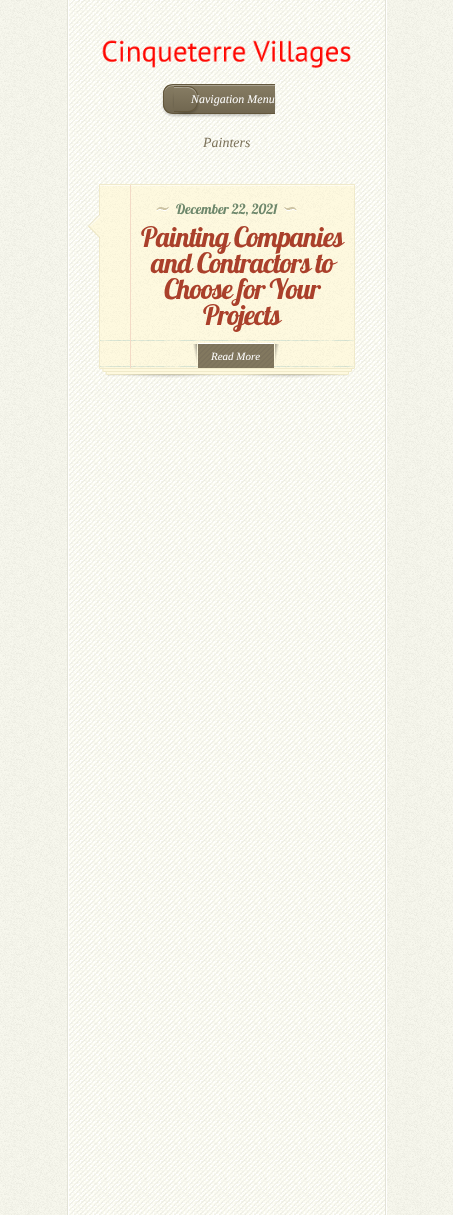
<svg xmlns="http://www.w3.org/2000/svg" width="453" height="1215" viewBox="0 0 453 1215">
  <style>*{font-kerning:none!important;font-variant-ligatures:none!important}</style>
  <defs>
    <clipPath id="clip1"><path d="M173 84H275V114H173C167.5 114 163 109.5 163 104V94C163 88.5 167.5 84 173 84Z"/></clipPath>
    <linearGradient id="g1" gradientUnits="userSpaceOnUse" x1="220" y1="85" x2="220" y2="113"><stop offset="0" stop-color="rgb(134,124,99)"/><stop offset="1" stop-color="rgb(113,103,80)"/></linearGradient>
    <clipPath id="clip2"><path d="M174 86H188C193.5 86 198 90.5 198 96V102C198 107.5 193.5 112 188 112H174Z"/></clipPath>
    <linearGradient id="g2" gradientUnits="userSpaceOnUse" x1="186" y1="87" x2="186" y2="111"><stop offset="0" stop-color="rgb(134,124,99)"/><stop offset="1" stop-color="rgb(113,103,80)"/></linearGradient>
  </defs>
  <rect width="100%" height="100%" fill="rgb(255,255,255)"/>
  <image x="0" y="0" width="453" height="1215" href="pic1.png"/>
  <image x="69" y="0" width="316" height="1215" href="pic2.png"/>
  <image x="67" y="0" width="2" height="1215" href="pic3.png"/>
  <image x="102" y="40" width="249" height="28" href="pic4.png"/>
  <rect x="163" y="86" width="112" height="30" rx="10" fill="rgba(0,0,0,0.2)" filter="blur(1px)"/>
  <g clip-path="url(#clip1)">
    <rect x="163" y="85" width="112" height="28" fill="url(#g1)"/>
  </g>
  <path d="M173 86H275V85H173C168 85 164 89 164 94V95C164 90 168 86 173 86Z" fill="rgba(255,255,255,0.3)"/>
  <path d="M173 84H275V114H173C167 114 163 110 163 104V94C163 88 167 84 173 84ZM173 85H275V113H173C168 113 164 109 164 104V94C164 89 168 85 173 85Z" fill="rgb(98,86,59)" fill-rule="evenodd"/>
  <rect x="174" y="88" width="24" height="26" rx="10" fill="rgba(0,0,0,0.2)" filter="blur(1px)"/>
  <g clip-path="url(#clip2)">
    <rect x="174" y="87" width="24" height="24" fill="url(#g2)"/>
  </g>
  <path d="M174 88C183 88 195 85 197 97V96C197 91 193 87 188 87H174Z" fill="rgba(255,255,255,0.3)"/>
  <path d="M174 86H188C193.5 86 198 90.5 198 96V102C198 107.5 193.5 112 188 112H174ZM174 87H188C193 87 197 91 197 96V102C197 107 193 111 188 111H174Z" fill="rgb(98,86,59)" fill-rule="evenodd"/>
  <text x="191" y="103" font-family="Liberation Serif" font-size="12" font-style="italic" fill="rgb(255,255,255)">Navigation Menu</text>
  <image x="385" y="0" width="2" height="1215" href="pic3.png"/>
  <text x="203" y="147" font-family="Liberation Serif" font-size="14" font-style="italic" fill="rgb(123,113,89)">Painters</text>
  <rect x="99" y="184" width="256" height="1" fill="rgb(240,234,202)"/>
  <rect x="99" y="184" width="1" height="184" fill="rgb(240,234,202)"/>
  <image x="88" y="214" width="12" height="24" href="pic5.png"/>
  <rect x="354" y="184" width="1" height="184" fill="rgb(240,234,202)"/>
  <image x="100" y="185" width="254" height="183" href="pic6.png"/>
  <image x="100" y="210" width="254" height="118" href="pic7.png"/>
  <rect x="100" y="185" width="254" height="1" fill="rgba(255,255,255,0.6)"/>
  <rect x="130" y="185" width="1" height="183" fill="rgb(243,218,198)"/>
  <image x="156" y="207" width="13" height="4" href="pic8.png"/>
  <text x="176" y="214" font-family="Lobster" font-size="14" fill="rgb(110,136,108)">December 22, 2021</text>
  <image x="284" y="207" width="13" height="4" href="pic9.png"/>
  <g font-family="Lobster" font-size="28" letter-spacing="-1" fill="rgb(170,64,43)">
    <text x="141" y="247">Painting Companies</text>
    <text x="151" y="273">and Contractors to</text>
    <text x="164" y="299">Choose for Your</text>
    <text x="203" y="325">Projects</text>
  </g>
  <rect x="198" y="344" width="76" height="24" fill="rgb(130,120,95)"/>
  <image x="198" y="344" width="76" height="24" href="pic10.png"/>
  <rect x="198" y="343" width="76" height="1" fill="rgb(255,255,255)"/>
  <image x="193" y="344" width="4" height="19" href="pic11.png"/>
  <text x="211" y="360" font-family="Liberation Serif" font-size="11" font-style="italic" fill="rgb(255,255,255)">Read More</text>
  <image x="275" y="344" width="4" height="19" href="pic12.png"/>
  <image x="99" y="368" width="10" height="8" href="pic13.png"/>
  <image x="346" y="368" width="9" height="8" href="pic14.png"/>
  <image x="108" y="368" width="238" height="8" href="pic15.png"/>
  <image x="110" y="374" width="113" height="4" href="pic16.png"/>
  <image x="224" y="374" width="114" height="4" href="pic17.png"/>
</svg>
